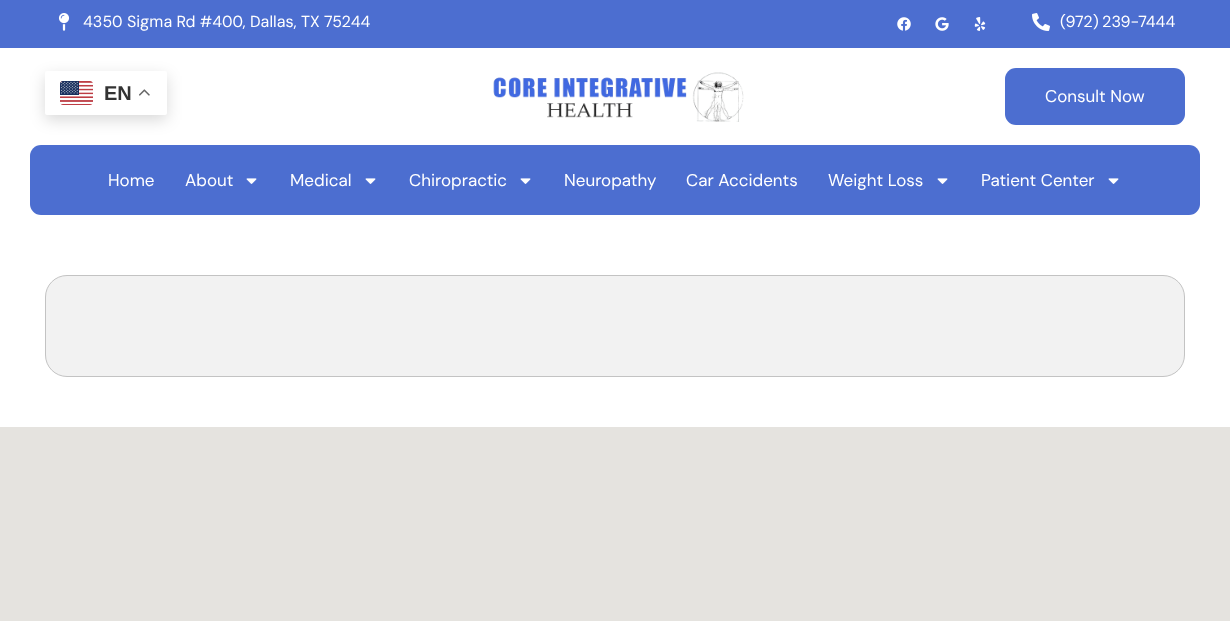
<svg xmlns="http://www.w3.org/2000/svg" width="1230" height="621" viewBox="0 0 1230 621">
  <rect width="100%" height="100%" fill="rgb(255,255,255)"/>
  <rect x="0" y="0" width="1230" height="48" fill="rgb(76,110,208)"/>
  <image x="58" y="13" width="12" height="18" href="pic1.png"/>
  <text x="83" y="27" font-family="DM Sans" font-size="16" fill="rgb(255,255,255)">4350 Sigma Rd #400, Dallas, TX 75244</text>
  <image x="897" y="17" width="14" height="14" href="pic2.png"/>
  <image x="935" y="17" width="14" height="14" href="pic3.png"/>
  <image x="974" y="17" width="12" height="14" href="pic4.png"/>
  <image x="1032" y="13" width="18" height="18" href="pic5.png"/>
  <text x="1060" y="27" word-spacing="-1" font-family="DM Sans" font-size="16" fill="rgb(255,255,255)">(972) 239-7444</text>
  <rect x="45" y="76" width="122" height="44" rx="2" fill="rgba(0,0,0,0.15)" filter="blur(7.5px)"/>
  <rect x="45" y="71" width="122" height="44" rx="2" fill="rgb(255,255,255)"/>
  <image x="60" y="81" width="33" height="24" href="pic6.png"/>
  <text x="104" y="100" font-family="Liberation Sans" font-size="20" font-weight="bold" fill="rgb(51,51,51)">EN</text>
  <image x="139" y="89" width="11" height="7" href="pic7.png"/>
  <image x="493" y="72" width="251" height="50" href="pic8.png"/>
  <rect x="1005" y="68" width="180" height="57" rx="11" fill="rgb(76,110,208)"/>
  <text x="1045" y="102" font-family="'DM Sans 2'" font-size="17" fill="rgb(255,255,255)">Consult Now</text>
  <rect x="30" y="145" width="1170" height="70" rx="11" fill="rgb(76,110,208)"/>
  <g font-family="'DM Sans 2'" font-size="17" fill="rgb(255,255,255)">
    <text x="108" y="186">Home</text>
    <text x="185" y="186">About</text>
  </g>
  <image x="246" y="178" width="11" height="6" href="pic9.png"/>
  <text x="290" y="186" font-family="'DM Sans 2'" font-size="17" fill="rgb(255,255,255)">Medical</text>
  <image x="365" y="178" width="11" height="6" href="pic9.png"/>
  <text x="409" y="186" font-family="'DM Sans 2'" font-size="17" fill="rgb(255,255,255)">Chiropractic</text>
  <image x="520" y="178" width="11" height="6" href="pic9.png"/>
  <g font-family="'DM Sans 2'" font-size="17" fill="rgb(255,255,255)">
    <text x="564" y="186">Neuropathy</text>
    <text x="686" y="186">Car Accidents</text>
    <text x="828" y="186">Weight Loss</text>
  </g>
  <image x="937" y="178" width="11" height="6" href="pic9.png"/>
  <text x="981" y="186" font-family="'DM Sans 2'" font-size="17" fill="rgb(255,255,255)">Patient Center</text>
  <image x="1108" y="178" width="11" height="6" href="pic9.png"/>
  <rect x="45.5" y="275.5" width="1139" height="101" rx="21.5" fill="rgb(242,242,242)" stroke="rgb(195,195,195)"/>
  <rect x="0" y="427" width="1230" height="194" fill="rgb(229,227,223)"/>
</svg>
